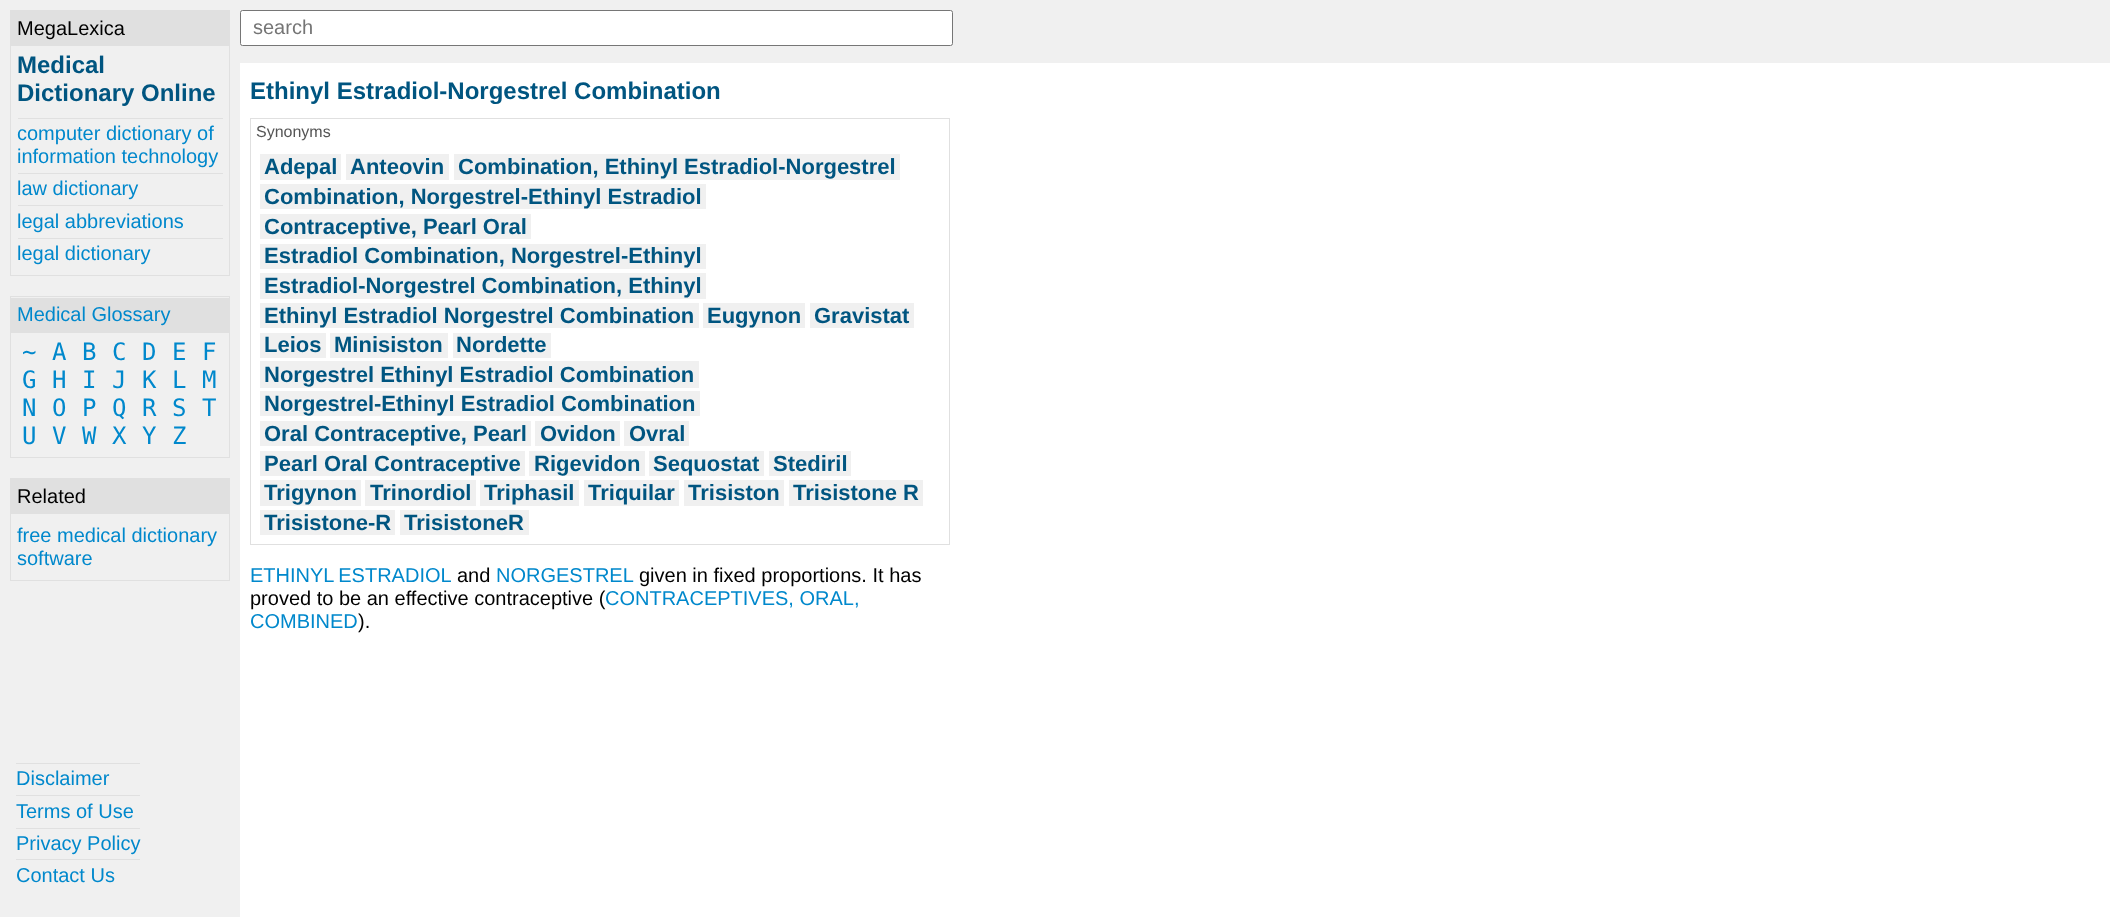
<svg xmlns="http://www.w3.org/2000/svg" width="2110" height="917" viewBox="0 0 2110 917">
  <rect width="100%" height="100%" fill="rgb(255,255,255)"/>
  <rect x="0" y="0" width="240" height="917" fill="rgb(240,240,240)"/>
  <rect x="10.5" y="10.5" width="219" height="265" fill="none" stroke="rgb(224,224,224)"/>
  <rect x="11" y="11" width="218" height="35" fill="rgb(224,224,224)"/>
  <text x="17" y="35" font-family="Liberation Sans" font-size="20" fill="rgb(0,0,0)">MegaLexica</text>
  <g font-family="Liberation Sans" font-size="24" font-weight="bold" fill="rgb(0,85,128)">
    <text>
      <tspan x="17" y="73">Medical</tspan>
      <tspan x="17" y="101">Dictionary Online</tspan>
    </text>
  </g>
  <rect x="18" y="118" width="205" height="1" fill="rgb(224,224,224)"/>
  <g font-family="Liberation Sans" font-size="20" fill="rgb(0,136,204)">
    <text>
      <tspan x="17" y="140">computer dictionary of</tspan>
      <tspan x="17" y="163">information technology</tspan>
    </text>
  </g>
  <rect x="18" y="173" width="205" height="1" fill="rgb(224,224,224)"/>
  <text x="17" y="195" font-family="Liberation Sans" font-size="20" fill="rgb(0,136,204)">law dictionary</text>
  <rect x="18" y="205" width="205" height="1" fill="rgb(224,224,224)"/>
  <text x="17" y="228" font-family="Liberation Sans" font-size="20" fill="rgb(0,136,204)">legal abbreviations</text>
  <rect x="18" y="238" width="205" height="1" fill="rgb(224,224,224)"/>
  <text x="17" y="260" font-family="Liberation Sans" font-size="20" fill="rgb(0,136,204)">legal dictionary</text>
  <rect x="10.5" y="296.5" width="219" height="161" fill="none" stroke="rgb(224,224,224)"/>
  <rect x="11" y="298" width="218" height="35" fill="rgb(224,224,224)"/>
  <text x="17" y="321" font-family="Liberation Sans" font-size="20" fill="rgb(0,136,204)">Medical Glossary</text>
  <g font-family="DejaVu Sans Mono" font-size="24" fill="rgb(0,136,204)">
    <text x="22" y="360">~</text>
    <text x="52" y="360">A</text>
    <text x="82" y="360">B</text>
    <text x="112" y="360">C</text>
    <text x="142" y="360">D</text>
    <text x="172" y="360">E</text>
    <text x="202" y="360">F</text>
    <text x="22" y="388">G</text>
    <text x="52" y="388">H</text>
    <text x="82" y="388">I</text>
    <text x="112" y="388">J</text>
    <text x="142" y="388">K</text>
    <text x="172" y="388">L</text>
    <text x="202" y="388">M</text>
    <text x="22" y="416">N</text>
    <text x="52" y="416">O</text>
    <text x="82" y="416">P</text>
    <text x="112" y="416">Q</text>
    <text x="142" y="416">R</text>
    <text x="172" y="416">S</text>
    <text x="202" y="416">T</text>
    <text x="22" y="444">U</text>
    <text x="52" y="444">V</text>
    <text x="82" y="444">W</text>
    <text x="112" y="444">X</text>
    <text x="142" y="444">Y</text>
    <text x="172" y="444">Z</text>
  </g>
  <rect x="10.5" y="478.5" width="219" height="102" fill="none" stroke="rgb(224,224,224)"/>
  <rect x="11" y="479" width="218" height="35" fill="rgb(224,224,224)"/>
  <text x="17" y="503" font-family="Liberation Sans" font-size="20" fill="rgb(0,0,0)">Related</text>
  <g font-family="Liberation Sans" font-size="20" fill="rgb(0,136,204)">
    <text>
      <tspan x="17" y="542">free medical dictionary</tspan>
      <tspan x="17" y="565">software</tspan>
    </text>
  </g>
  <rect x="16" y="763" width="124" height="1" fill="rgb(224,224,224)"/>
  <text x="16" y="785" font-family="Liberation Sans" font-size="20" fill="rgb(0,136,204)">Disclaimer</text>
  <rect x="16" y="795" width="124" height="1" fill="rgb(224,224,224)"/>
  <text x="16" y="818" font-family="Liberation Sans" font-size="20" fill="rgb(0,136,204)">Terms of Use</text>
  <rect x="16" y="828" width="124" height="1" fill="rgb(224,224,224)"/>
  <text x="16" y="850" font-family="Liberation Sans" font-size="20" fill="rgb(0,136,204)">Privacy Policy</text>
  <rect x="16" y="859" width="124" height="1" fill="rgb(224,224,224)"/>
  <text x="16" y="882" font-family="Liberation Sans" font-size="20" fill="rgb(0,136,204)">Contact Us</text>
  <rect x="240" y="0" width="1870" height="63" fill="rgb(240,240,240)"/>
  <rect x="240.5" y="10.5" width="712" height="35" rx="2" fill="rgb(255,255,255)" stroke="rgb(118,118,118)"/>
  <text x="253" y="34" font-family="Liberation Sans" font-size="20" fill="rgb(117,117,117)">search</text>
  <text x="250" y="99" font-family="Liberation Sans" font-size="24" font-weight="bold" fill="rgb(0,85,128)">Ethinyl Estradiol-Norgestrel Combination</text>
  <rect x="250.5" y="118.5" width="699" height="426" fill="none" stroke="rgb(224,224,224)"/>
  <text x="256" y="137" font-family="Liberation Sans" font-size="16" fill="rgb(85,85,85)">Synonyms</text>
  <rect x="260" y="154" width="81" height="26" fill="rgb(240,240,240)"/>
  <text x="264" y="174" font-family="Liberation Sans" font-size="22" font-weight="bold" fill="rgb(0,85,128)">Adepal</text>
  <rect x="346" y="154" width="103" height="26" fill="rgb(240,240,240)"/>
  <text x="350" y="174" font-family="Liberation Sans" font-size="22" font-weight="bold" fill="rgb(0,85,128)">Anteovin</text>
  <rect x="454" y="154" width="446" height="26" fill="rgb(240,240,240)"/>
  <text x="458" y="174" font-family="Liberation Sans" font-size="22" font-weight="bold" fill="rgb(0,85,128)">Combination, Ethinyl Estradiol-Norgestrel</text>
  <rect x="260" y="184" width="446" height="25" fill="rgb(240,240,240)"/>
  <text x="264" y="204" font-family="Liberation Sans" font-size="22" font-weight="bold" fill="rgb(0,85,128)">Combination, Norgestrel-Ethinyl Estradiol</text>
  <rect x="260" y="214" width="271" height="25" fill="rgb(240,240,240)"/>
  <text x="264" y="234" font-family="Liberation Sans" font-size="22" font-weight="bold" fill="rgb(0,85,128)">Contraceptive, Pearl Oral</text>
  <rect x="260" y="244" width="446" height="25" fill="rgb(240,240,240)"/>
  <text x="264" y="263" font-family="Liberation Sans" font-size="22" font-weight="bold" fill="rgb(0,85,128)">Estradiol Combination, Norgestrel-Ethinyl</text>
  <rect x="260" y="273" width="446" height="26" fill="rgb(240,240,240)"/>
  <text x="264" y="293" font-family="Liberation Sans" font-size="22" font-weight="bold" fill="rgb(0,85,128)">Estradiol-Norgestrel Combination, Ethinyl</text>
  <rect x="260" y="303" width="439" height="25" fill="rgb(240,240,240)"/>
  <text x="264" y="323" font-family="Liberation Sans" font-size="22" font-weight="bold" fill="rgb(0,85,128)">Ethinyl Estradiol Norgestrel Combination</text>
  <rect x="703" y="303" width="102" height="25" fill="rgb(240,240,240)"/>
  <text x="707" y="323" font-family="Liberation Sans" font-size="22" font-weight="bold" fill="rgb(0,85,128)">Eugynon</text>
  <rect x="810" y="303" width="104" height="25" fill="rgb(240,240,240)"/>
  <text x="814" y="323" font-family="Liberation Sans" font-size="22" font-weight="bold" fill="rgb(0,85,128)">Gravistat</text>
  <rect x="260" y="333" width="66" height="25" fill="rgb(240,240,240)"/>
  <text x="264" y="352" font-family="Liberation Sans" font-size="22" font-weight="bold" fill="rgb(0,85,128)">Leios</text>
  <rect x="330" y="333" width="118" height="25" fill="rgb(240,240,240)"/>
  <text x="334" y="352" font-family="Liberation Sans" font-size="22" font-weight="bold" fill="rgb(0,85,128)">Minisiston</text>
  <rect x="453" y="333" width="98" height="25" fill="rgb(240,240,240)"/>
  <text x="456" y="352" font-family="Liberation Sans" font-size="22" font-weight="bold" fill="rgb(0,85,128)">Nordette</text>
  <rect x="260" y="361" width="439" height="27" fill="rgb(240,240,240)"/>
  <text x="264" y="382" font-family="Liberation Sans" font-size="22" font-weight="bold" fill="rgb(0,85,128)">Norgestrel Ethinyl Estradiol Combination</text>
  <rect x="260" y="391" width="440" height="25" fill="rgb(240,240,240)"/>
  <text x="264" y="411" font-family="Liberation Sans" font-size="22" font-weight="bold" fill="rgb(0,85,128)">Norgestrel-Ethinyl Estradiol Combination</text>
  <rect x="260" y="421" width="271" height="25" fill="rgb(240,240,240)"/>
  <text x="264" y="441" font-family="Liberation Sans" font-size="22" font-weight="bold" fill="rgb(0,85,128)">Oral Contraceptive, Pearl</text>
  <rect x="535" y="421" width="85" height="25" fill="rgb(240,240,240)"/>
  <text x="540" y="441" font-family="Liberation Sans" font-size="22" font-weight="bold" fill="rgb(0,85,128)">Ovidon</text>
  <rect x="624" y="421" width="65" height="25" fill="rgb(240,240,240)"/>
  <text x="629" y="441" font-family="Liberation Sans" font-size="22" font-weight="bold" fill="rgb(0,85,128)">Ovral</text>
  <rect x="260" y="451" width="265" height="25" fill="rgb(240,240,240)"/>
  <text x="264" y="471" font-family="Liberation Sans" font-size="22" font-weight="bold" fill="rgb(0,85,128)">Pearl Oral Contraceptive</text>
  <rect x="529" y="451" width="116" height="25" fill="rgb(240,240,240)"/>
  <text x="534" y="471" font-family="Liberation Sans" font-size="22" font-weight="bold" fill="rgb(0,85,128)">Rigevidon</text>
  <rect x="649" y="451" width="115" height="25" fill="rgb(240,240,240)"/>
  <text x="653" y="471" font-family="Liberation Sans" font-size="22" font-weight="bold" fill="rgb(0,85,128)">Sequostat</text>
  <rect x="769" y="451" width="82" height="25" fill="rgb(240,240,240)"/>
  <text x="773" y="471" font-family="Liberation Sans" font-size="22" font-weight="bold" fill="rgb(0,85,128)">Stediril</text>
  <rect x="260" y="480" width="101" height="26" fill="rgb(240,240,240)"/>
  <text x="264" y="500" font-family="Liberation Sans" font-size="22" font-weight="bold" fill="rgb(0,85,128)">Trigynon</text>
  <rect x="365" y="480" width="111" height="26" fill="rgb(240,240,240)"/>
  <text x="370" y="500" font-family="Liberation Sans" font-size="22" font-weight="bold" fill="rgb(0,85,128)">Trinordiol</text>
  <rect x="480" y="480" width="99" height="26" fill="rgb(240,240,240)"/>
  <text x="484" y="500" font-family="Liberation Sans" font-size="22" font-weight="bold" fill="rgb(0,85,128)">Triphasil</text>
  <rect x="584" y="480" width="95" height="26" fill="rgb(240,240,240)"/>
  <text x="588" y="500" font-family="Liberation Sans" font-size="22" font-weight="bold" fill="rgb(0,85,128)">Triquilar</text>
  <rect x="684" y="480" width="100" height="26" fill="rgb(240,240,240)"/>
  <text x="688" y="500" font-family="Liberation Sans" font-size="22" font-weight="bold" fill="rgb(0,85,128)">Trisiston</text>
  <rect x="789" y="480" width="134" height="26" fill="rgb(240,240,240)"/>
  <text x="793" y="500" font-family="Liberation Sans" font-size="22" font-weight="bold" fill="rgb(0,85,128)">Trisistone R</text>
  <rect x="260" y="510" width="135" height="25" fill="rgb(240,240,240)"/>
  <text x="264" y="530" font-family="Liberation Sans" font-size="22" font-weight="bold" fill="rgb(0,85,128)">Trisistone-R</text>
  <rect x="400" y="510" width="129" height="25" fill="rgb(240,240,240)"/>
  <text x="404" y="530" font-family="Liberation Sans" font-size="22" font-weight="bold" fill="rgb(0,85,128)">TrisistoneR</text>
  <text x="250" y="582" word-spacing="-1" font-family="Liberation Sans" font-size="20" fill="rgb(0,136,204)">ETHINYL ESTRADIOL</text>
  <text x="457" y="582" font-family="Liberation Sans" font-size="20" fill="rgb(0,0,0)">and</text>
  <text x="496" y="582" font-family="Liberation Sans" font-size="20" fill="rgb(0,136,204)">NORGESTREL</text>
  <g font-family="Liberation Sans" font-size="20" fill="rgb(0,0,0)">
    <text x="639" y="582">given in fixed proportions. It has</text>
    <text x="250" y="605">proved to be an effective contraceptive (</text>
  </g>
  <g font-family="Liberation Sans" font-size="20" fill="rgb(0,136,204)">
    <text x="605" y="605">CONTRACEPTIVES, ORAL,</text>
    <text x="250" y="628">COMBINED</text>
  </g>
  <text x="358" y="628" font-family="Liberation Sans" font-size="20" fill="rgb(0,0,0)">).</text>
</svg>
